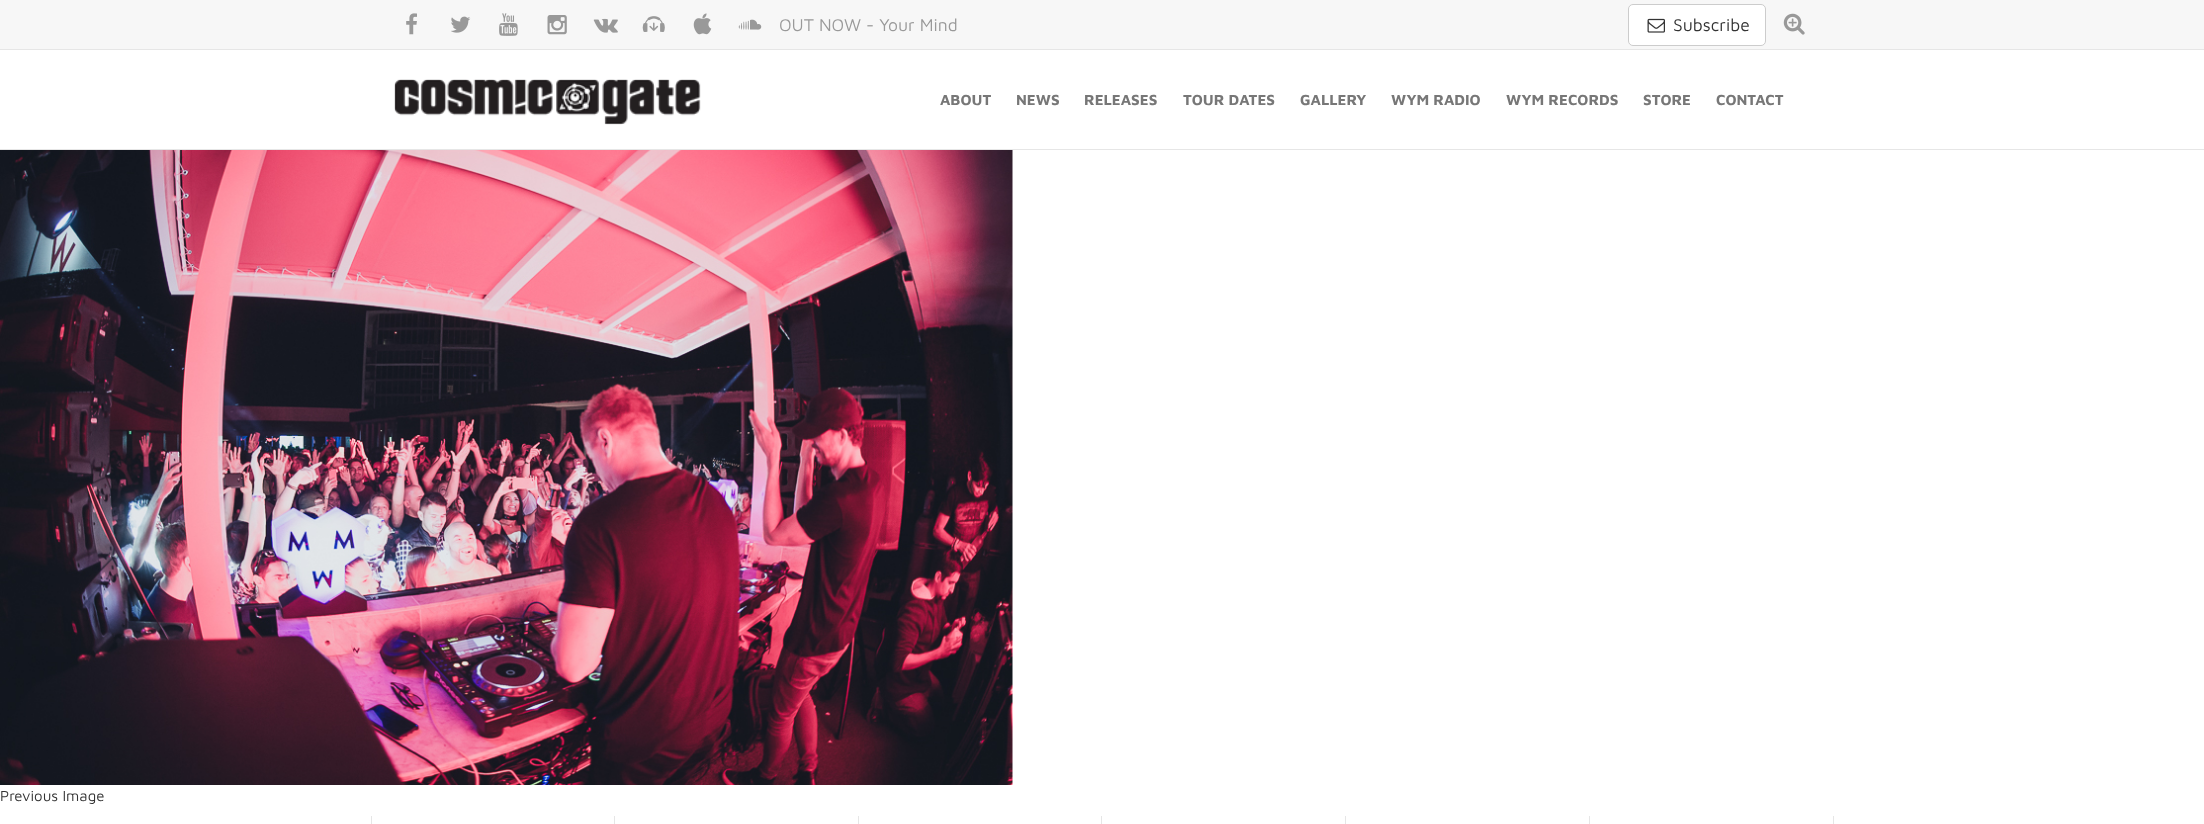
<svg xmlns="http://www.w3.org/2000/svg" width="2204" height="824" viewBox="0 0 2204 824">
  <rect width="100%" height="100%" fill="rgb(255,255,255)"/>
  <rect x="0" y="149" width="2204" height="1" fill="rgb(230,230,230)"/>
  <rect x="0" y="0" width="2204" height="49" fill="rgb(247,247,247)"/>
  <rect x="0" y="49" width="2204" height="1" fill="rgb(230,230,230)"/>
  <image x="406" y="13" width="11" height="22" href="pic1.png"/>
  <image x="451" y="16" width="20" height="17" href="pic2.png"/>
  <image x="499" y="13" width="19" height="23" href="pic3.png"/>
  <image x="547" y="15" width="20" height="20" href="pic4.png"/>
  <image x="593" y="18" width="25" height="15" href="pic5.png"/>
  <image x="642" y="16" width="23" height="16" href="pic6.png"/>
  <image x="693" y="13" width="19" height="22" href="pic7.png"/>
  <image x="738" y="19" width="24" height="11" href="pic8.png"/>
  <text x="779" y="31" font-family="Maven Pro" font-size="17.5" fill="rgb(153,153,153)">OUT NOW - Your Mind</text>
  <rect x="1628.5" y="4.5" width="137" height="41" rx="4.5" fill="rgb(255,255,255)" stroke="rgb(204,204,204)"/>
  <image x="1647" y="18" width="18" height="15" href="pic9.png"/>
  <text x="1673" y="31" font-family="Maven Pro" font-size="17.5" fill="rgb(51,51,51)">Subscribe</text>
  <image x="1783" y="13" width="22" height="22" href="pic10.png"/>
  <image x="394" y="79" width="307" height="46" href="pic11.png"/>
  <g font-family="Maven Pro" font-size="15" font-weight="bold" fill="rgb(119,119,119)">
    <text x="940" y="105">ABOUT</text>
    <text x="1016" y="105">NEWS</text>
    <text x="1084" y="105">RELEASES</text>
    <text x="1183" y="105">TOUR DATES</text>
    <text x="1300" y="105">GALLERY</text>
    <text x="1391" y="105">WYM RADIO</text>
    <text x="1506" y="105">WYM RECORDS</text>
    <text x="1643" y="105">STORE</text>
    <text x="1716" y="105">CONTACT</text>
  </g>
  <image x="0" y="150" width="1013" height="635" href="pic12.png"/>
  <text x="0" y="801" font-family="Maven Pro" font-size="15" fill="rgb(51,51,51)">Previous Image</text>
  <rect x="614" y="816" width="1" height="8" fill="rgb(230,230,230)"/>
  <rect x="371" y="816" width="1" height="8" fill="rgb(230,230,230)"/>
  <rect x="858" y="816" width="1" height="8" fill="rgb(230,230,230)"/>
  <rect x="1101" y="816" width="1" height="8" fill="rgb(230,230,230)"/>
  <rect x="1345" y="816" width="1" height="8" fill="rgb(230,230,230)"/>
  <rect x="1589" y="816" width="1" height="8" fill="rgb(230,230,230)"/>
  <rect x="1833" y="816" width="1" height="8" fill="rgb(230,230,230)"/>
</svg>
